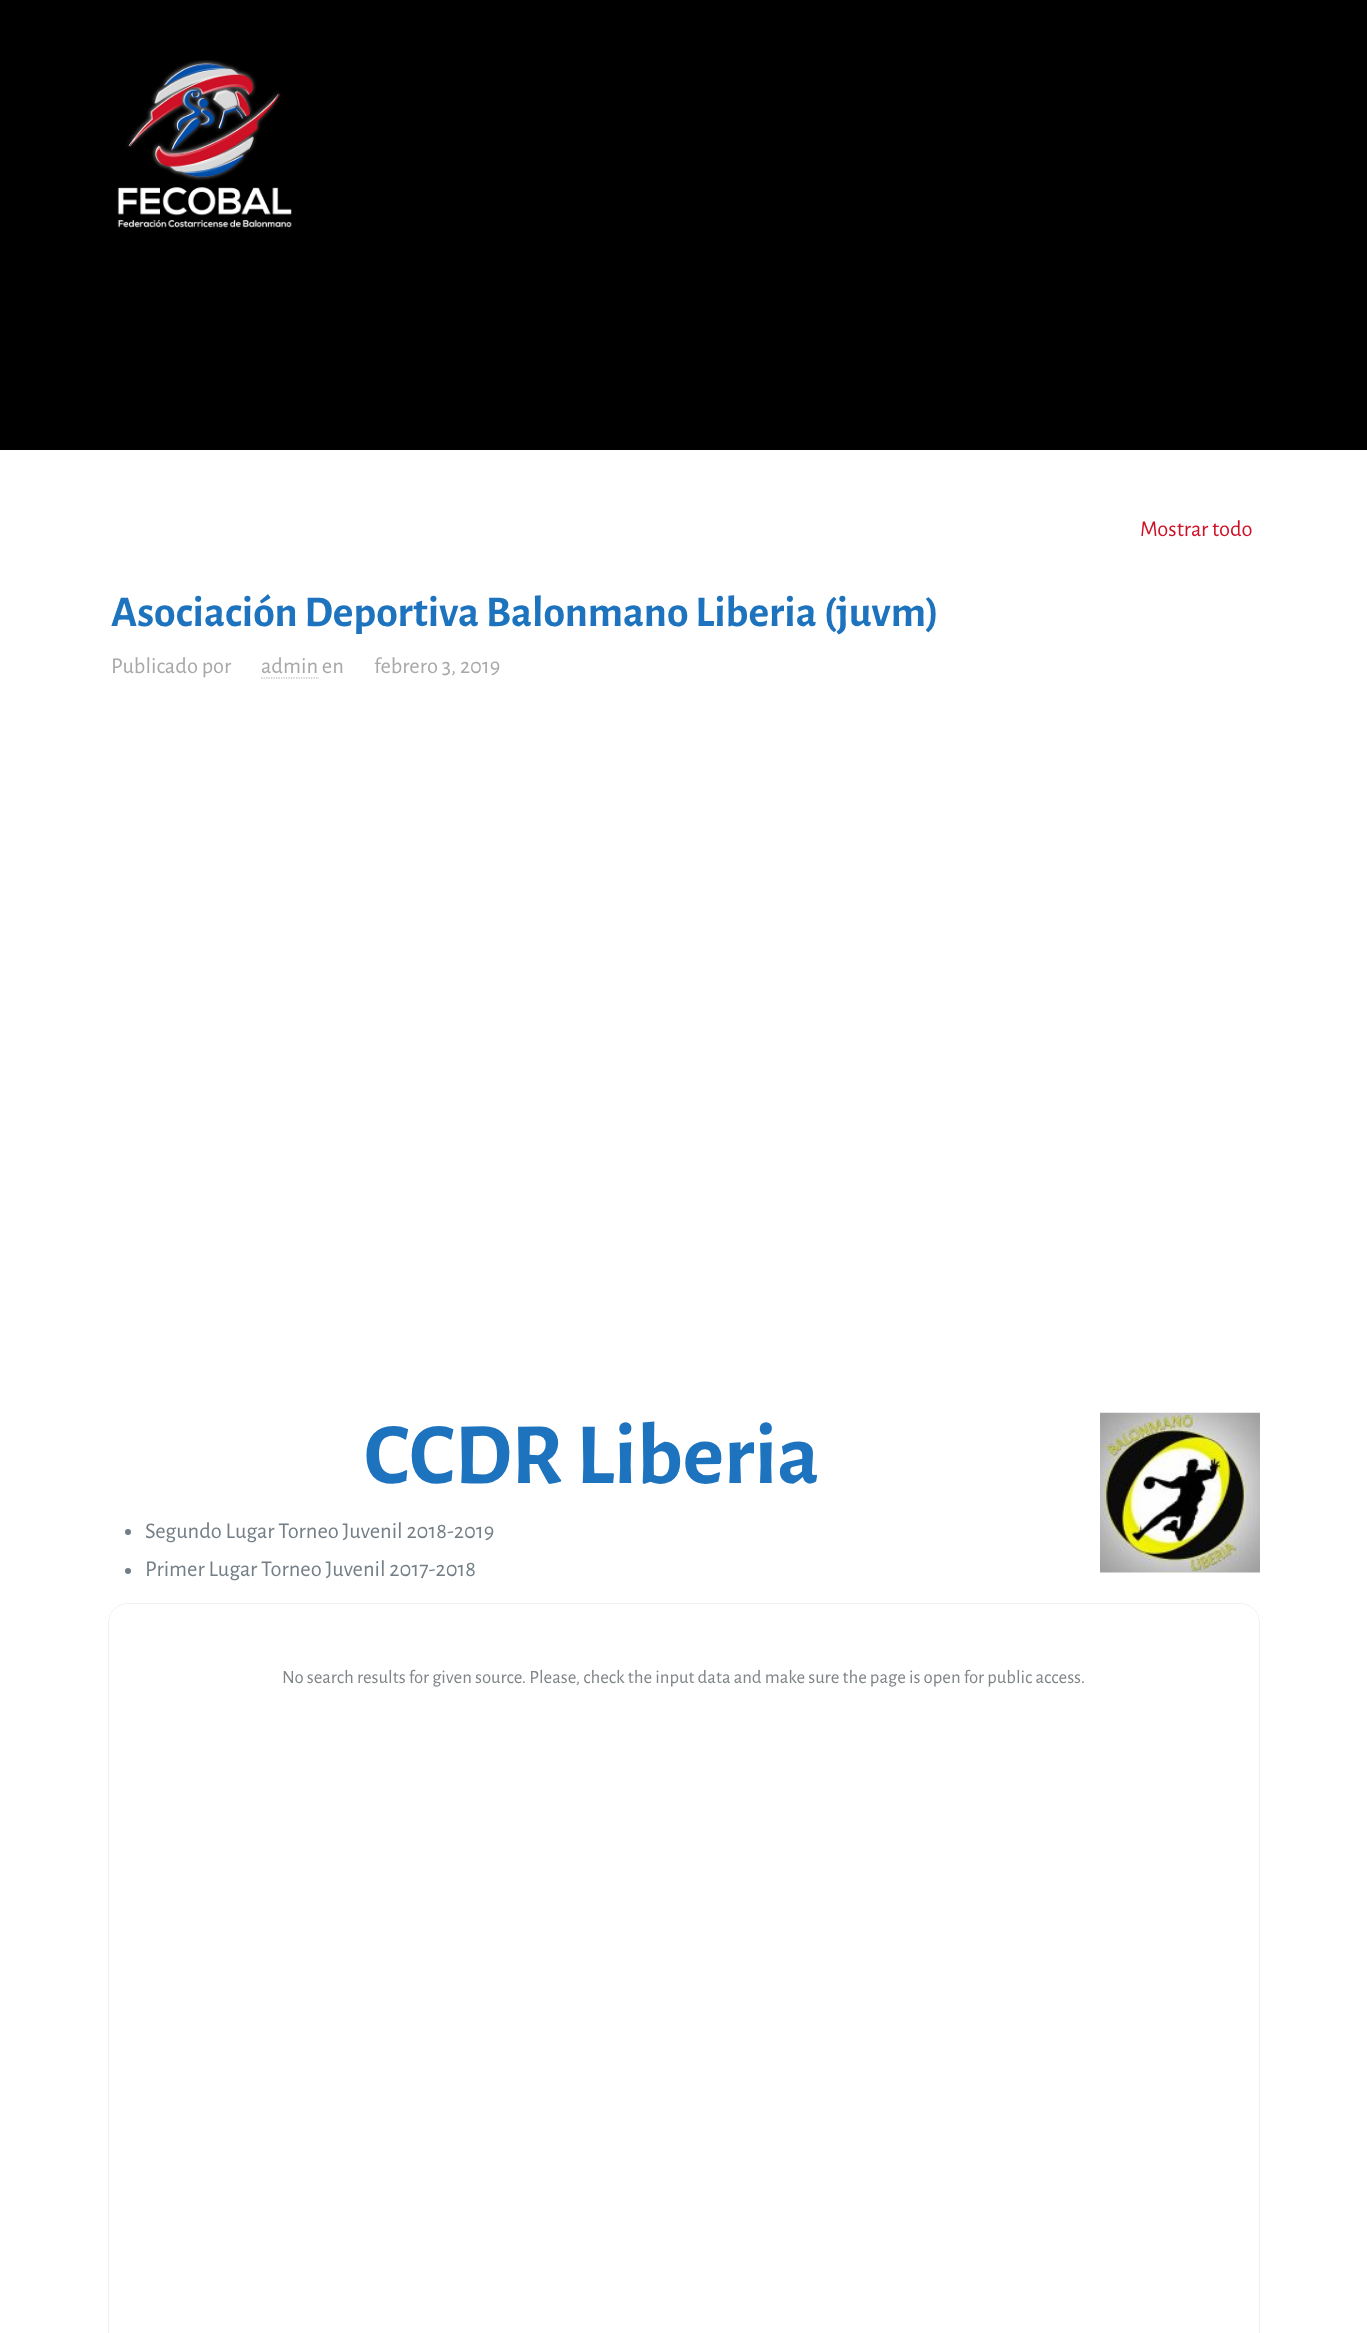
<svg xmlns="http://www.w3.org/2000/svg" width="1367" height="2333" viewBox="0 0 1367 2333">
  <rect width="100%" height="100%" fill="rgb(255,255,255)"/>
  <rect x="0" y="0" width="1367" height="450" fill="rgb(0,0,0)"/>
  <image x="117" y="60" width="175" height="168" href="pic1.png"/>
  <text x="1140" y="536" font-family="Alegreya Sans" font-size="22.5" fill="rgb(206,17,38)">Mostrar todo</text>
  <text x="111" y="626" font-family="Alegreya Sans" font-size="43.75" font-weight="bold" fill="rgb(30,115,190)">Asociación Deportiva Balonmano Liberia (juvm)</text>
  <g font-family="Alegreya Sans" font-size="22.5" fill="rgb(168,168,168)">
    <text x="111" y="673">Publicado por</text>
    <text x="261" y="673">admin en</text>
  </g>
  <path d="M261 678H319" fill="none" stroke="rgb(168,168,168)" stroke-width="1.2" stroke-dasharray="1.25 1.25"/>
  <text x="374" y="673" font-family="Alegreya Sans" font-size="22.5" fill="rgb(168,168,168)">febrero 3, 2019</text>
  <text x="364" y="1483" font-family="Alegreya Sans" font-size="87.5" font-weight="bold" fill="rgb(30,115,190)">CCDR Liberia</text>
  <circle cx="128" cy="1532" r="3" fill="rgb(115,126,134)"/>
  <text x="145" y="1538" font-family="Alegreya Sans" font-size="22.5" fill="rgb(115,126,134)">Segundo Lugar Torneo Juvenil 2018-2019</text>
  <circle cx="128" cy="1571" r="3" fill="rgb(115,126,134)"/>
  <text x="145" y="1576" font-family="Alegreya Sans" font-size="22.5" fill="rgb(115,126,134)">Primer Lugar Torneo Juvenil 2017-2018</text>
  <rect x="108.5" y="1603.5" width="1151" height="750" rx="19.5" fill="none" stroke="rgb(241,241,241)"/>
  <rect x="109" y="1604" width="1150" height="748" rx="19" fill="rgb(255,255,255)"/>
  <text x="282" y="1683" font-family="Alegreya Sans" font-size="18.75" fill="rgb(127,133,136)">No search results for given source. Please, check the input data and make sure the page is open for public access.</text>
  <image x="1100" y="1412" width="160" height="161" href="pic2.png"/>
</svg>
